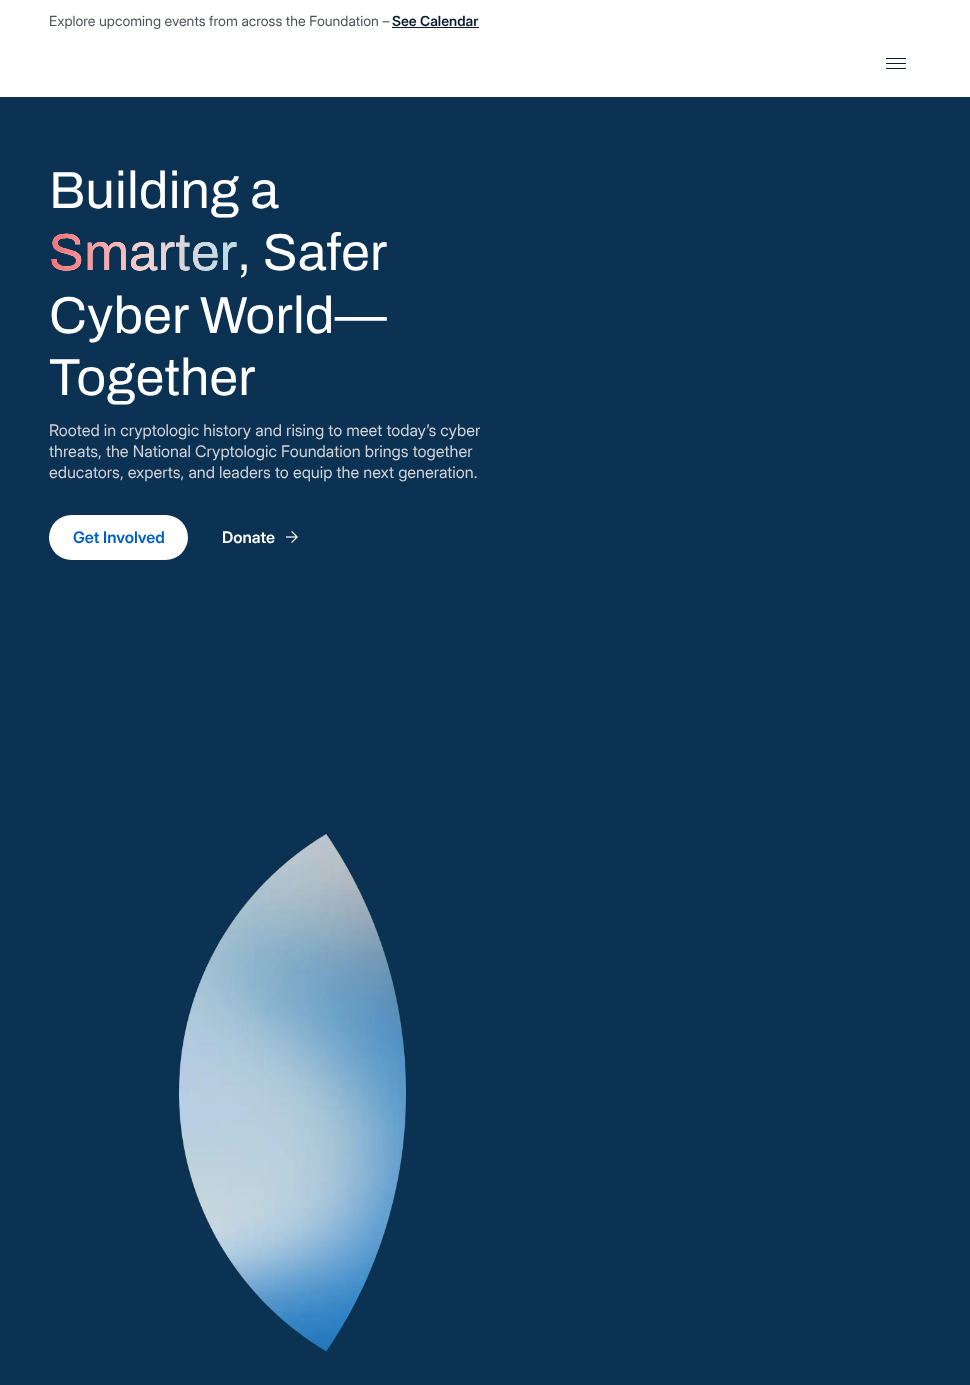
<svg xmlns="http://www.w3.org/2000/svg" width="970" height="1385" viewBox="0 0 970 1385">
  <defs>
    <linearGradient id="g1" gradientUnits="userSpaceOnUse" x1="49" y1="254" x2="237" y2="254"><stop offset="0" stop-color="rgb(255,108,114)"/><stop offset="0.5" stop-color="rgb(245,208,208)"/><stop offset="1" stop-color="rgb(185,220,233)"/></linearGradient>
  </defs>
  <rect width="100%" height="100%" fill="rgb(11,50,82)"/>
  <rect x="0" y="0" width="970" height="97" fill="rgb(255,255,255)"/>
  <text x="49" y="26" font-family="Inter" font-size="14" fill="rgb(78,83,91)">Explore upcoming events from across the Foundation –</text>
  <text x="392" y="26" font-family="Inter" font-size="14" font-weight="600" fill="rgb(8,29,49)">See Calendar</text>
  <rect x="392" y="27" width="87" height="1" fill="rgb(8,29,49)"/>
  <rect x="886" y="58" width="20" height="1" fill="rgb(8,29,49)"/>
  <rect x="886" y="63" width="20" height="1" fill="rgb(8,29,49)"/>
  <rect x="886" y="68" width="20" height="1" fill="rgb(8,29,49)"/>
  <g font-family="Archivo" font-size="52" letter-spacing="0.25" fill="rgb(255,255,255)">
    <text>
      <tspan x="49" y="208">Building a</tspan>
      <tspan x="49" y="270">Smarter</tspan>
    </text>
  </g>
  <text x="49" y="270" font-family="Archivo" font-size="52" letter-spacing="0.25" fill="url(#g1)">Smarter</text>
  <g font-family="Archivo" font-size="52" letter-spacing="0.25" fill="rgb(255,255,255)">
    <text x="237" y="270">, Safer</text>
    <text>
      <tspan x="49" y="333">Cyber World—</tspan>
      <tspan x="49" y="395">Together</tspan>
    </text>
  </g>
  <g font-family="Inter" font-size="16" fill="rgb(211,212,216)">
    <text>
      <tspan x="49" y="436">Rooted in cryptologic history and rising to meet today’s cyber</tspan>
      <tspan x="49" y="457">threats, the National Cryptologic Foundation brings together</tspan>
      <tspan x="49" y="478">educators, experts, and leaders to equip the next generation.</tspan>
    </text>
  </g>
  <rect x="49" y="515" width="139" height="45" rx="22.5" fill="rgb(255,255,255)"/>
  <text x="73" y="543" font-family="Inter" font-size="16" font-weight="600" fill="rgb(0,95,195)">Get Involved</text>
  <text x="222" y="543" font-family="Inter" font-size="16" font-weight="600" fill="rgb(255,255,255)">Donate</text>
  <image x="286" y="531" width="12" height="12" href="pic1.png"/>
  <image x="179" y="834" width="227" height="518" href="pic2.png"/>
</svg>
